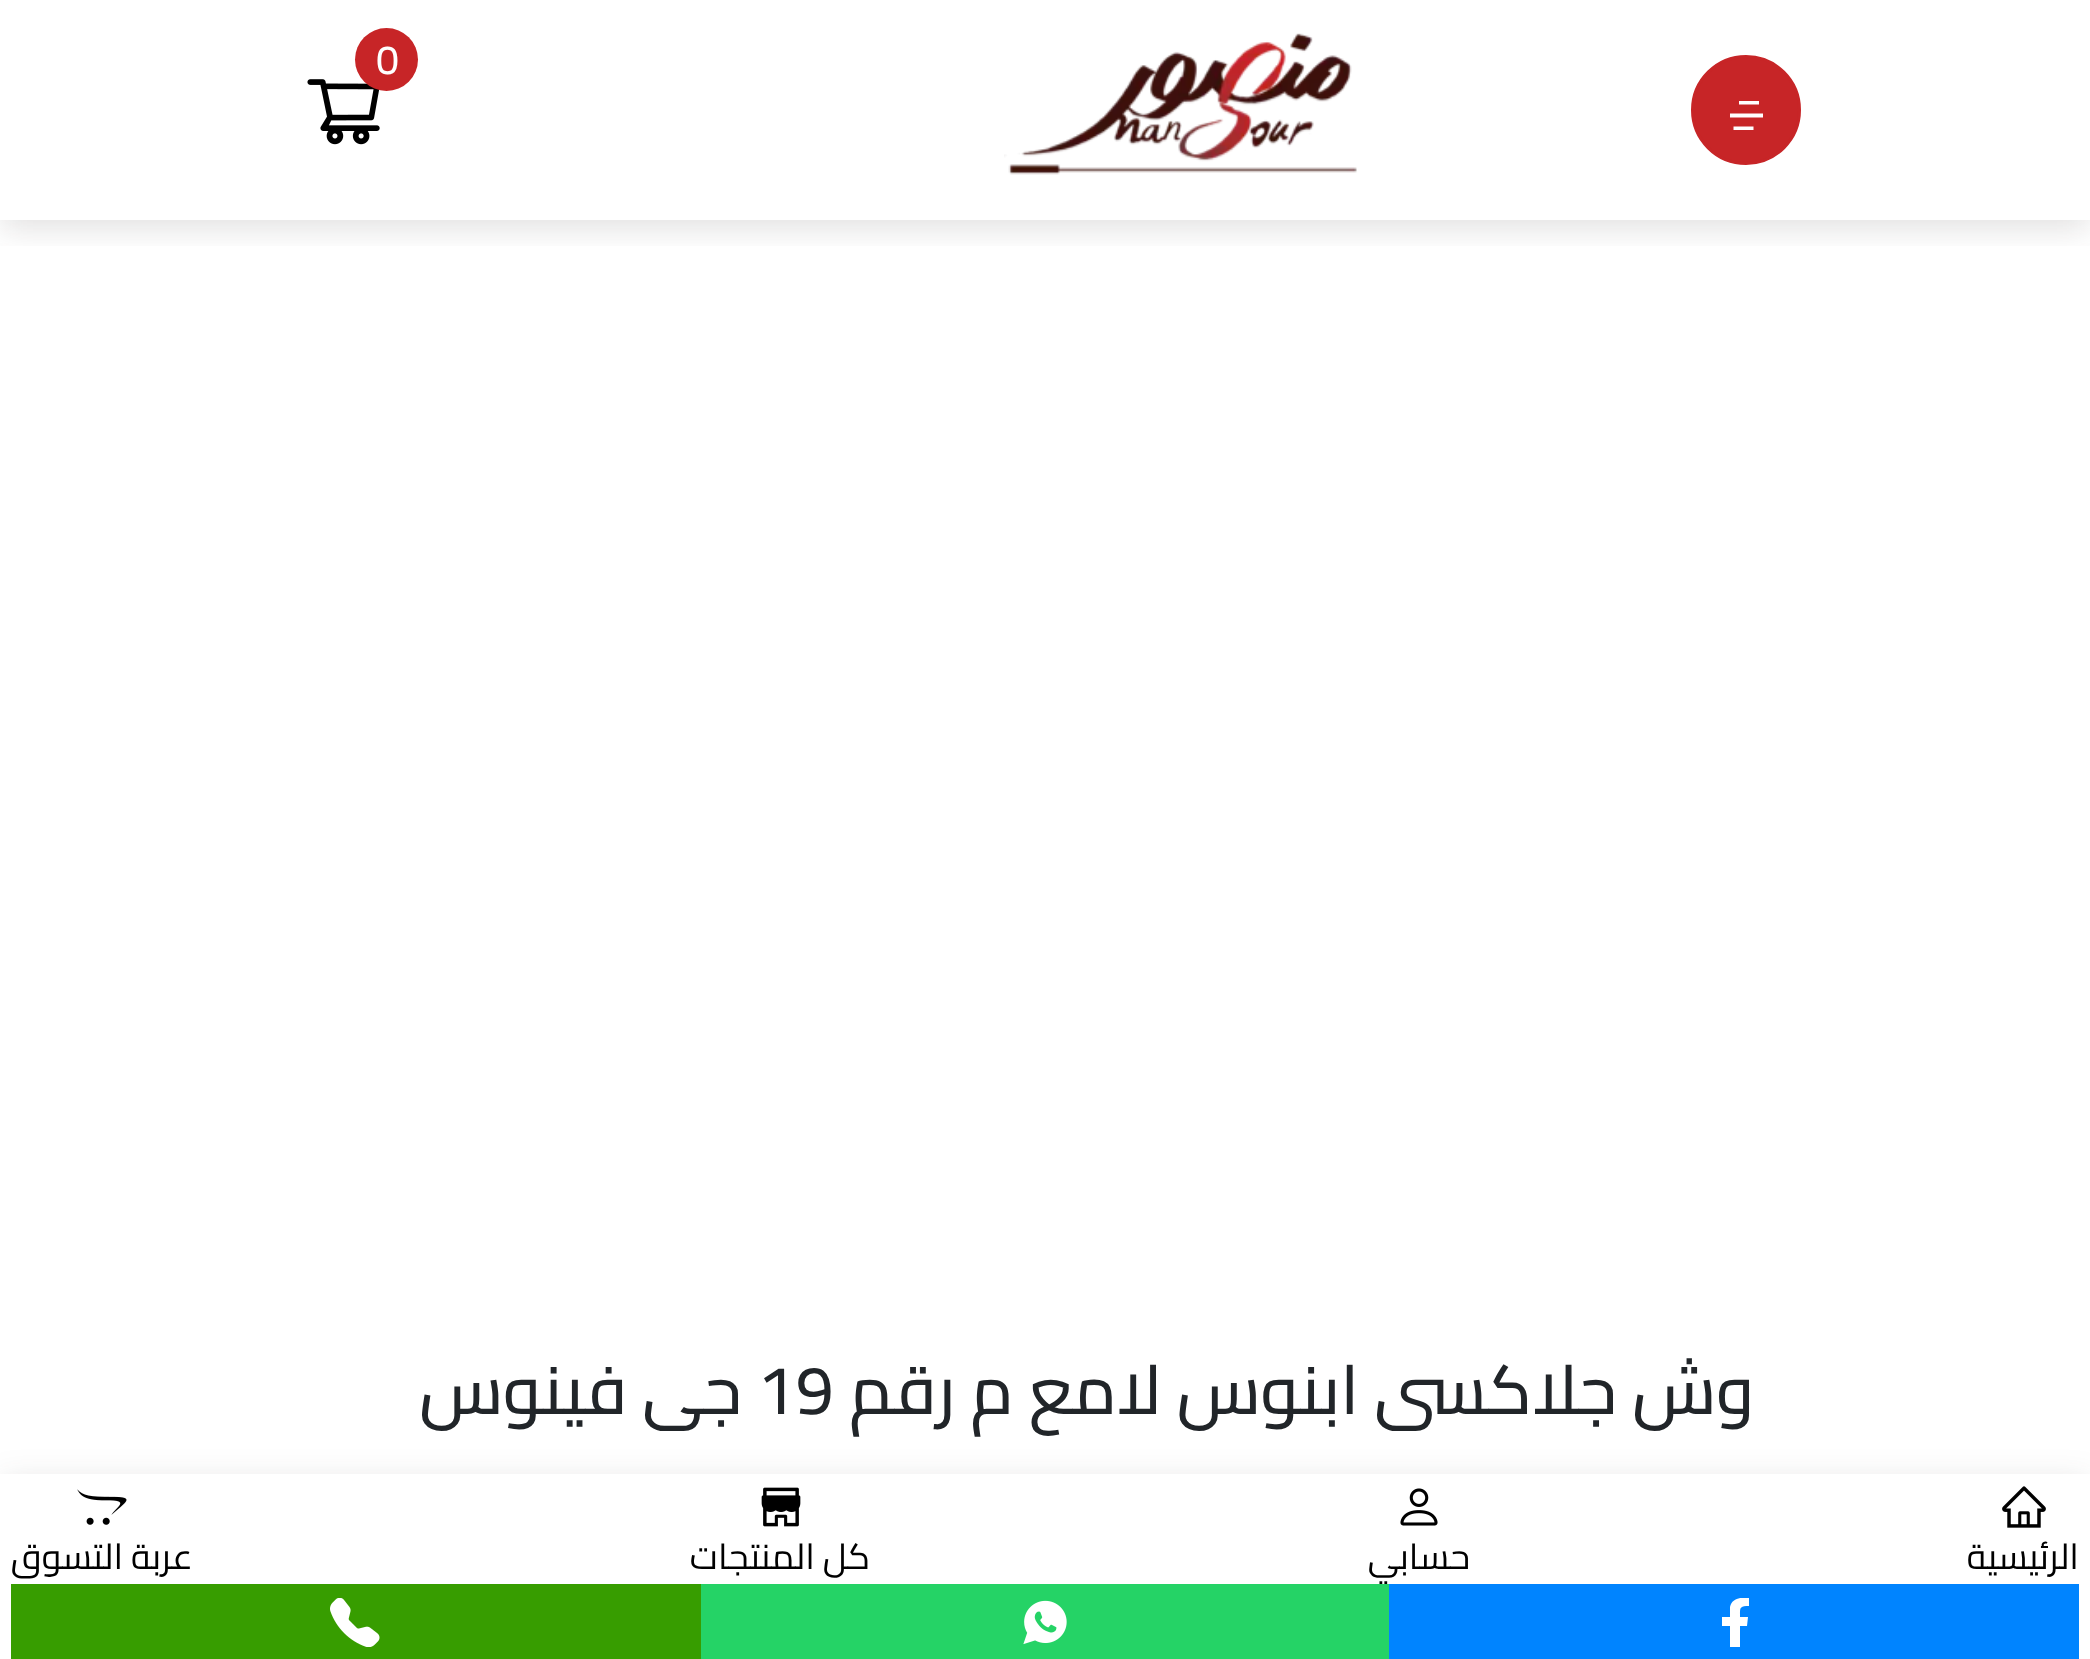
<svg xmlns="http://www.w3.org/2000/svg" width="2090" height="1659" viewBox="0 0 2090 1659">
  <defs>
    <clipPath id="clip1"><rect x="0" y="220" width="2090" height="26"/></clipPath>
    <clipPath id="clip2"><rect x="1711" y="1598" width="49" height="49"/></clipPath>
  </defs>
  <rect width="100%" height="100%" fill="rgb(255,255,255)"/>
  <g clip-path="url(#clip1)">
    <rect x="0" y="8" width="2090" height="220" fill="rgba(39,38,38,0.14)" filter="blur(16.5px)"/>
  </g>
  <circle cx="1746" cy="110" r="53.5" fill="rgb(199,37,39)" stroke="rgb(199,37,39)" stroke-width="3"/>
  <path d="M1753.5 126.5V130H1733.5V126.5ZM1763 113.5V117.5H1730V113.5ZM1759 101V104.5H1739V101Z" fill="rgb(255,255,255)"/>
  <image x="1004" y="33" width="353" height="142" href="pic1.png"/>
  <image x="307" y="79" width="73" height="66" href="pic2.png"/>
  <circle cx="386.5" cy="59.5" r="31.5" fill="rgb(199,37,39)"/>
  <text x="376" y="74" font-family="Cairo" font-size="41" font-weight="500" fill="rgb(255,255,255)">0</text>
  <text x="1754" y="1414" font-family="Cairo" font-size="68.75" font-weight="500" direction="rtl" fill="rgb(33,37,41)">وش جلاكسى ابنوس لامع م رقم</text>
  <text x="757" y="1414" font-family="Cairo" font-size="68.75" font-weight="500" fill="rgb(33,37,41)">19</text>
  <text x="742" y="1414" font-family="Cairo" font-size="68.75" font-weight="500" direction="rtl" fill="rgb(33,37,41)">جى فينوس</text>
  <rect x="0" y="1482" width="2090" height="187" fill="rgba(39,38,38,0.14)" filter="blur(16.5px)"/>
  <rect x="0" y="1474" width="2090" height="185" fill="rgb(255,255,255)"/>
  <image x="2002" y="1486" width="44" height="42" href="pic3.png"/>
  <text x="2079" y="1569" font-family="Cairo" font-size="35.75" direction="rtl" fill="rgb(0,0,0)">الرئيسية</text>
  <image x="1400" y="1488" width="38" height="38" href="pic4.png"/>
  <text x="1470" y="1569" font-family="Cairo" font-size="35.75" direction="rtl" fill="rgb(0,0,0)">حسابي</text>
  <image x="761" y="1487" width="40" height="40" href="pic5.png"/>
  <text x="870" y="1569" font-family="Cairo" font-size="35.75" direction="rtl" fill="rgb(0,0,0)">كل المنتجات</text>
  <image x="77" y="1489" width="50" height="36" href="pic6.png"/>
  <text x="193" y="1569" font-family="Cairo" font-size="35.75" direction="rtl" fill="rgb(0,0,0)">عربة التسوق</text>
  <rect x="1389" y="1584" width="690" height="75" fill="rgb(0,132,255)"/>
  <g clip-path="url(#clip2)">
    <path d="M1747 1626L1748 1617H1740C1740 1608 1739 1606 1749 1606V1598C1741 1597 1732 1598 1730 1607V1617H1722V1626H1730V1647H1740V1626Z" fill="rgb(255,255,255)"/>
  </g>
  <rect x="701" y="1584" width="688" height="75" fill="rgb(37,211,102)"/>
  <image x="1023" y="1600" width="44" height="45" href="pic7.png"/>
  <rect x="11" y="1584" width="690" height="75" fill="rgb(55,157,0)"/>
  <image x="330" y="1598" width="50" height="49" href="pic8.png"/>
</svg>
